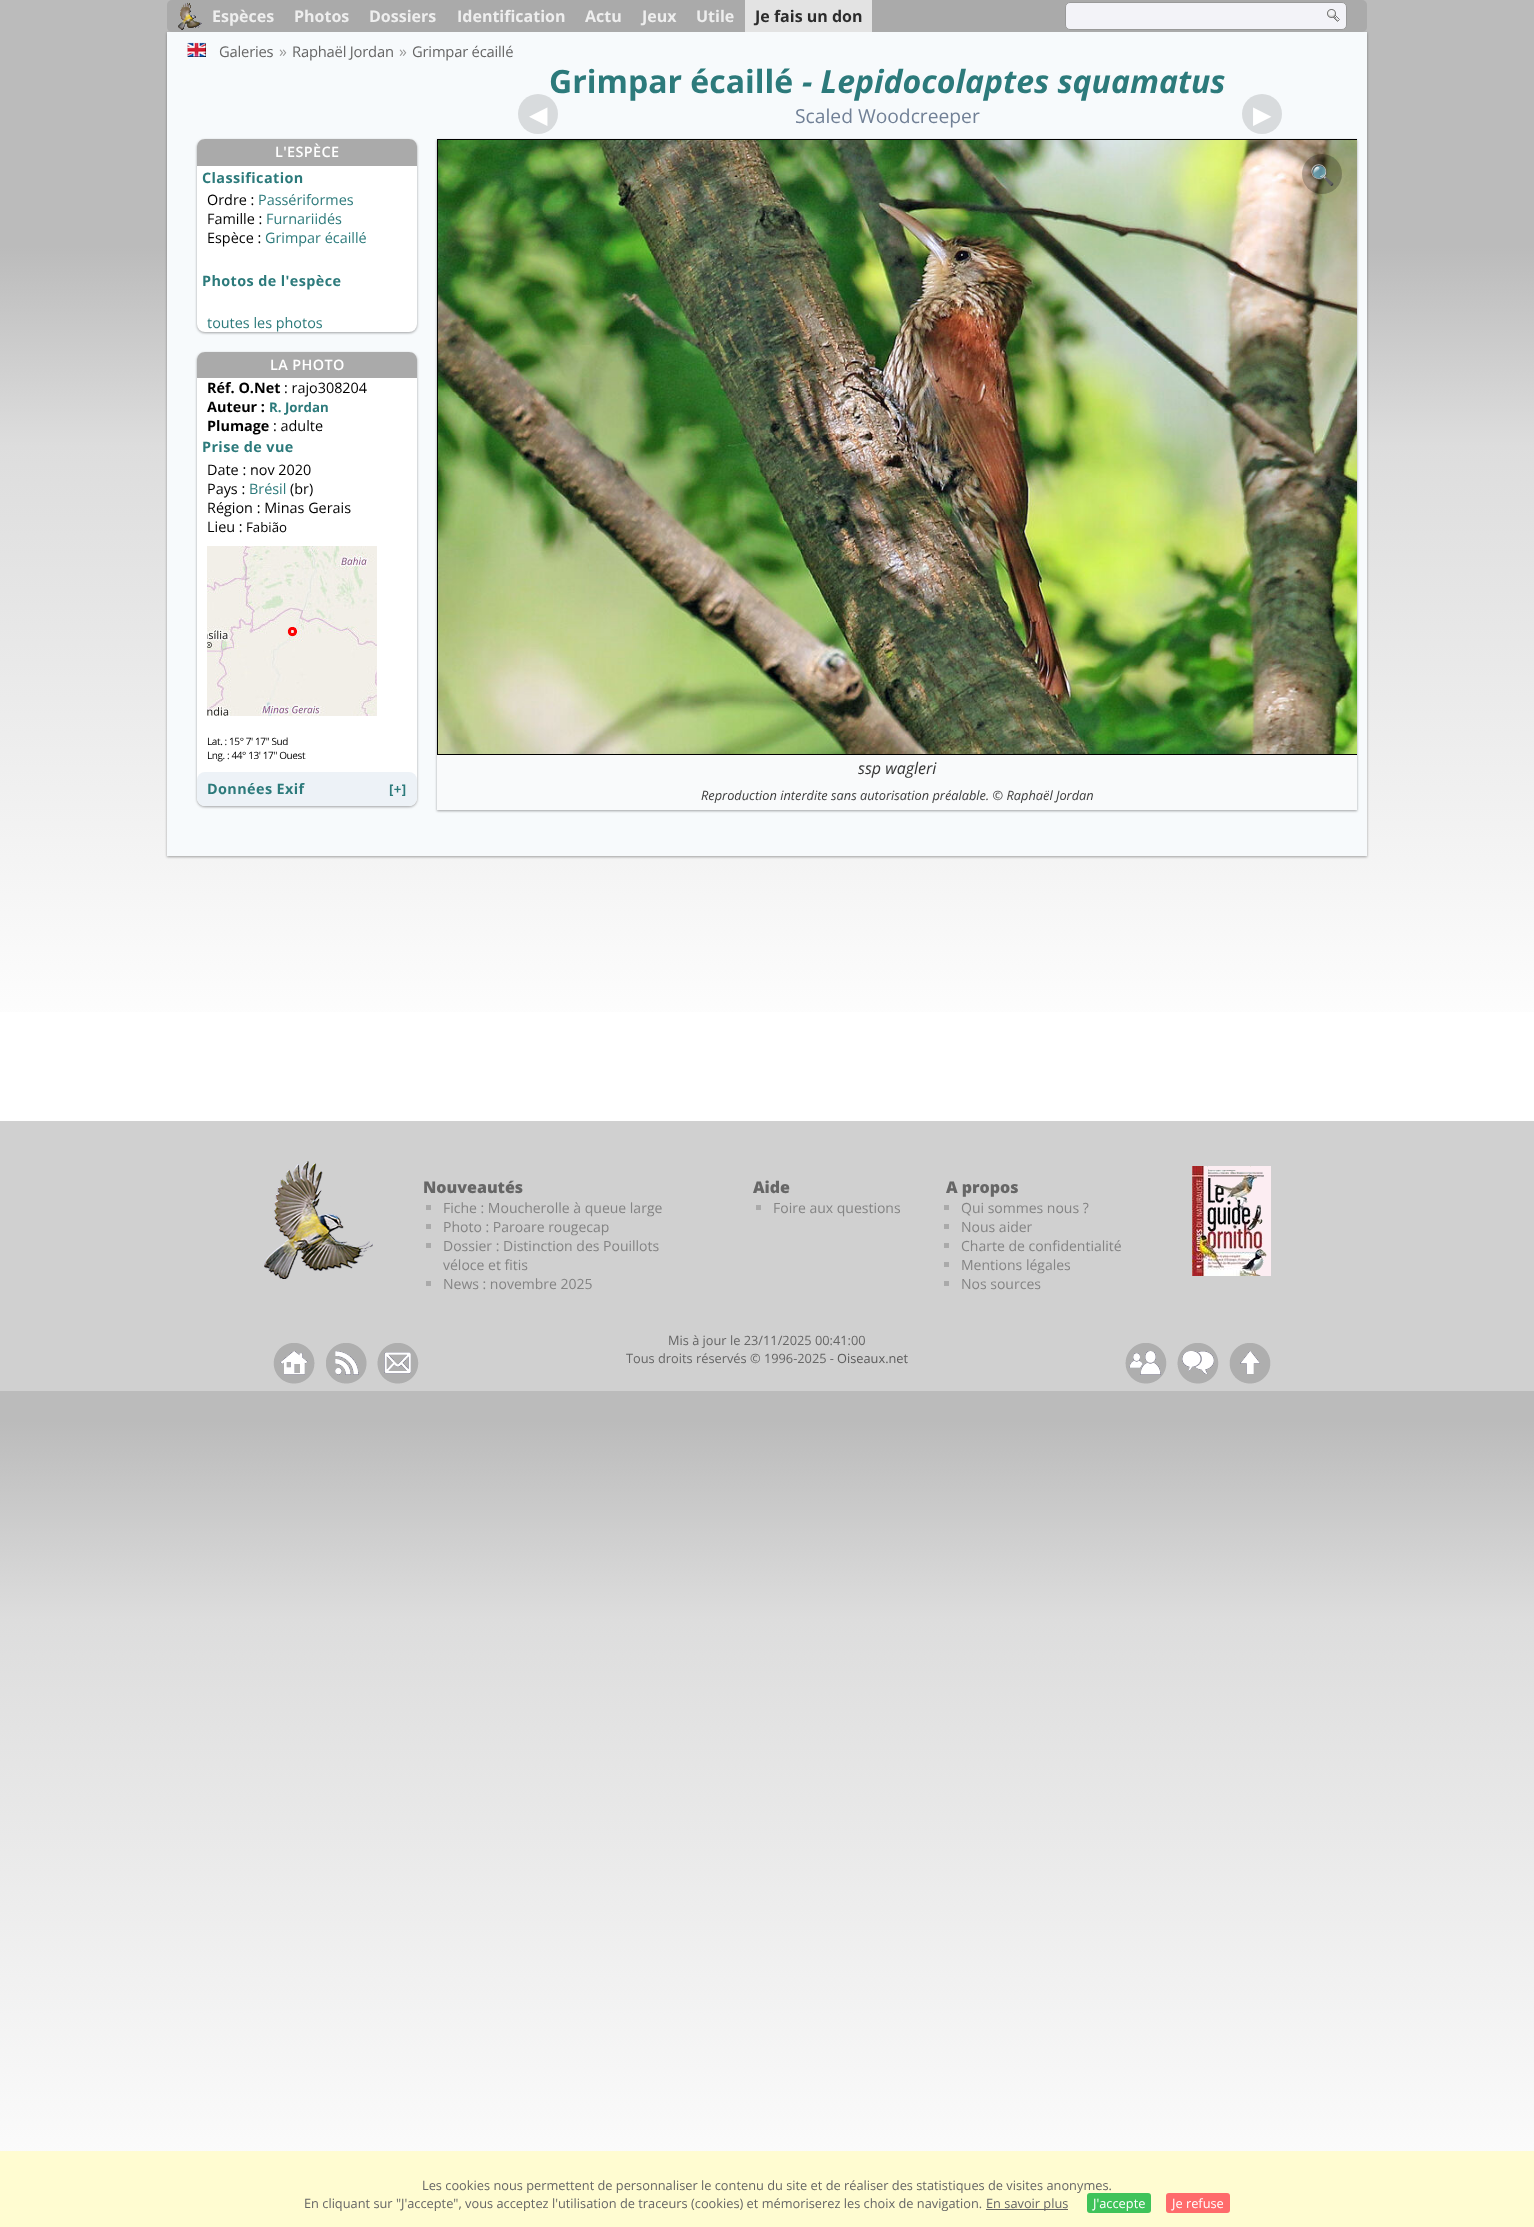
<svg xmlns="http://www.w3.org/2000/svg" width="1534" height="2227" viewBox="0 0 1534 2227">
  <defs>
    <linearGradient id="g1" gradientUnits="userSpaceOnUse" x1="767" y1="0" x2="767" y2="1174"><stop offset="0" stop-color="rgb(187,187,187)"/><stop offset="0.21" stop-color="rgb(187,187,187)"/><stop offset="0.38" stop-color="rgb(221,221,221)"/><stop offset="0.9" stop-color="rgb(255,255,255)"/><stop offset="1" stop-color="rgb(255,255,255)"/></linearGradient>
    <linearGradient id="g2" gradientUnits="userSpaceOnUse" x1="767" y1="1174" x2="767" y2="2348"><stop offset="0" stop-color="rgb(187,187,187)"/><stop offset="0.21" stop-color="rgb(187,187,187)"/><stop offset="0.38" stop-color="rgb(221,221,221)"/><stop offset="0.9" stop-color="rgb(255,255,255)"/><stop offset="1" stop-color="rgb(255,255,255)"/></linearGradient>
    <clipPath id="clip1"><rect x="437" y="139" width="920" height="671"/></clipPath>
  </defs>
  <rect width="100%" height="100%" fill="rgb(255,255,255)"/>
  <rect x="0" y="0" width="1534" height="1012" fill="url(#g1)"/>
  <rect x="0" y="1391" width="1534" height="760" fill="url(#g2)"/>
  <rect x="167" y="33" width="1200" height="824" fill="rgba(0,0,0,0.24)" filter="blur(1px)"/>
  <rect x="167" y="33" width="1200" height="824" fill="rgba(0,0,0,0.12)" filter="blur(1.5px)"/>
  <rect x="167" y="0" width="1200" height="32" rx="5" fill="rgb(170,170,170)"/>
  <image x="178" y="2" width="24" height="28" href="pic1.png"/>
  <g font-family="Open Sans" font-size="16" font-weight="bold" fill="rgb(238,238,238)">
    <text x="212" y="22">Espèces</text>
    <text x="294" y="22">Photos</text>
    <text x="369" y="22">Dossiers</text>
    <text x="457" y="22">Identification</text>
    <text x="585" y="22">Actu</text>
    <text x="642" y="22">Jeux</text>
    <text x="696" y="22">Utile</text>
  </g>
  <rect x="745" y="0" width="127" height="32" fill="rgb(227,227,227)"/>
  <text x="755" y="22" font-family="Open Sans" font-size="16" font-weight="bold" fill="rgb(44,44,44)">Je fais un don</text>
  <rect x="1065.5" y="2.5" width="281" height="27" rx="4.5" fill="rgb(243,243,248)" stroke="rgb(153,153,153)"/>
  <image x="1327" y="9" width="13" height="13" href="pic2.png"/>
  <rect x="167" y="32" width="1200" height="824" fill="rgb(247,250,252)"/>
  <image x="187" y="42" width="19" height="15" href="pic3.png"/>
  <text x="219" y="57" font-family="Open Sans" font-size="14.75" letter-spacing="-0.2" fill="rgb(102,102,102)">Galeries</text>
  <text x="279" y="57" font-family="Open Sans" font-size="16" fill="rgb(153,153,153)">»</text>
  <text x="292" y="57" font-family="Open Sans" font-size="14.75" letter-spacing="-0.2" fill="rgb(102,102,102)">Raphaël Jordan</text>
  <text x="399" y="57" font-family="Open Sans" font-size="16" fill="rgb(153,153,153)">»</text>
  <text x="412" y="57" font-family="Open Sans" font-size="14.75" letter-spacing="-0.2" fill="rgb(102,102,102)">Grimpar écaillé</text>
  <text x="549" y="93" font-family="Open Sans" font-size="32" font-weight="bold" fill="rgb(44,122,123)">Grimpar écaillé</text>
  <text x="802" y="93" font-family="Open Sans" font-size="32" font-weight="bold" font-style="italic" fill="rgb(44,122,123)">- Lepidocolaptes squamatus</text>
  <text x="795" y="123" font-family="Open Sans" font-size="19.25" fill="rgb(113,128,150)">Scaled Woodcreeper</text>
  <rect x="197" y="140" width="220" height="193" rx="8" fill="rgba(0,0,0,0.24)" filter="blur(1px)"/>
  <rect x="197" y="140" width="220" height="193" rx="8" fill="rgba(0,0,0,0.12)" filter="blur(1.5px)"/>
  <rect x="197" y="139" width="220" height="193" rx="8" fill="rgb(255,255,255)"/>
  <path d="M205 139H409C413.5 139 417 142.5 417 147V166H197V147C197 142.5 200.5 139 205 139Z" fill="rgb(170,170,170)"/>
  <text x="275" y="157" font-family="Open Sans" font-size="14.4" font-weight="600" letter-spacing="0.4" fill="rgb(255,255,255)">L'ESPÈCE</text>
  <text x="202" y="183" font-family="Open Sans" font-size="14.4" font-weight="bold" letter-spacing="0.4" fill="rgb(44,122,123)">Classification</text>
  <text x="207" y="205" font-family="Open Sans" font-size="14.4" fill="rgb(0,0,0)">Ordre :</text>
  <text x="258" y="205" font-family="Open Sans" font-size="14.4" fill="rgb(44,122,123)">Passériformes</text>
  <text x="207" y="224" font-family="Open Sans" font-size="14.4" fill="rgb(0,0,0)">Famille :</text>
  <text x="266" y="224" font-family="Open Sans" font-size="14.4" fill="rgb(44,122,123)">Furnariidés</text>
  <text x="207" y="243" font-family="Open Sans" font-size="14.4" fill="rgb(0,0,0)">Espèce :</text>
  <text x="265" y="243" font-family="Open Sans" font-size="14.4" fill="rgb(44,122,123)">Grimpar écaillé</text>
  <text x="202" y="286" font-family="Open Sans" font-size="14.4" font-weight="bold" letter-spacing="0.4" fill="rgb(44,122,123)">Photos de l'espèce</text>
  <text x="207" y="328" font-family="Open Sans" font-size="14.4" fill="rgb(44,122,123)">toutes les photos</text>
  <rect x="197" y="353" width="220" height="454" rx="8" fill="rgba(0,0,0,0.24)" filter="blur(1px)"/>
  <rect x="197" y="353" width="220" height="454" rx="8" fill="rgba(0,0,0,0.12)" filter="blur(1.5px)"/>
  <rect x="197" y="352" width="220" height="454" rx="8" fill="rgb(255,255,255)"/>
  <path d="M205 352H409C413.5 352 417 355.5 417 360V378H197V360C197 355.5 200.5 352 205 352Z" fill="rgb(170,170,170)"/>
  <text x="270" y="370" font-family="Open Sans" font-size="14.4" font-weight="600" letter-spacing="0.4" fill="rgb(255,255,255)">LA PHOTO</text>
  <text x="207" y="393" font-family="Open Sans" font-size="14.4" font-weight="bold" fill="rgb(0,0,0)">Réf. O.Net</text>
  <text x="284" y="393" font-family="Open Sans" font-size="14.4" fill="rgb(0,0,0)">: rajo308204</text>
  <text x="207" y="412" font-family="Open Sans" font-size="14.4" font-weight="bold" fill="rgb(0,0,0)">Auteur :</text>
  <text x="269" y="412" font-family="Open Sans" font-size="13.25" font-weight="bold" fill="rgb(44,122,123)">R. Jordan</text>
  <text x="207" y="431" font-family="Open Sans" font-size="14.4" font-weight="bold" fill="rgb(0,0,0)">Plumage</text>
  <text x="273" y="431" font-family="Open Sans" font-size="14.4" fill="rgb(0,0,0)">: adulte</text>
  <text x="202" y="452" font-family="Open Sans" font-size="14.4" font-weight="bold" letter-spacing="0.4" fill="rgb(44,122,123)">Prise de vue</text>
  <g font-family="Open Sans" font-size="14.4" fill="rgb(0,0,0)">
    <text>
      <tspan x="207" y="475">Date : nov 2020</tspan>
      <tspan x="207" y="494">Pays :</tspan>
    </text>
  </g>
  <text x="249" y="494" font-family="Open Sans" font-size="14.4" fill="rgb(44,122,123)">Brésil</text>
  <g font-family="Open Sans" font-size="14.4" fill="rgb(0,0,0)">
    <text x="290" y="494">(br)</text>
    <text>
      <tspan x="207" y="513">Région : Minas Gerais</tspan>
      <tspan x="207" y="532">Lieu :</tspan>
    </text>
  </g>
  <text x="246" y="532" font-family="Open Sans" font-size="13.25" fill="rgb(0,0,0)">Fabião</text>
  <image x="207" y="546" width="170" height="170" href="pic4.png"/>
  <g font-family="Open Sans" font-size="10" letter-spacing="-0.4" fill="rgb(0,0,0)">
    <text>
      <tspan x="207" y="745">Lat. : 15° 7' 17'' Sud</tspan>
      <tspan x="207" y="759">Lng. : 44° 13' 17'' Ouest</tspan>
    </text>
  </g>
  <rect x="197" y="772" width="220" height="34" rx="8" fill="rgb(237,242,247)"/>
  <text x="207" y="794" font-family="Open Sans" font-size="14.4" font-weight="bold" letter-spacing="0.4" fill="rgb(44,122,123)">Données Exif</text>
  <text x="389" y="794" font-family="Open Sans" font-size="13.25" font-weight="bold" letter-spacing="0.4" fill="rgb(44,122,123)">[+]</text>
  <circle cx="538" cy="114" r="20" fill="rgb(216,219,221)"/>
  <text x="529" y="123" font-family="DejaVu Sans" font-size="24" fill="rgb(255,255,255)">◀</text>
  <circle cx="1262" cy="114" r="20" fill="rgb(216,219,221)"/>
  <text x="1253" y="123" font-family="DejaVu Sans" font-size="24" fill="rgb(255,255,255)">▶</text>
  <rect x="437" y="140" width="920" height="671" fill="rgba(0,0,0,0.24)" filter="blur(1px)"/>
  <rect x="437" y="140" width="920" height="671" fill="rgba(0,0,0,0.12)" filter="blur(1.5px)"/>
  <g clip-path="url(#clip1)">
    <rect x="437.5" y="139.5" width="921" height="615" fill="none" stroke="rgb(0,0,0)"/>
  </g>
  <image x="438" y="140" width="919" height="614" href="pic5.png"/>
  <circle cx="1322" cy="174" r="20" fill="rgba(0,0,0,0.24)"/>
  <text x="1310" y="182" font-family="Noto Color Emoji" font-size="20" fill="rgb(161,160,143)">🔍</text>
  <rect x="437" y="755" width="920" height="55" fill="rgb(249,250,251)"/>
  <text x="858" y="774" font-family="Open Sans" font-size="16" font-style="italic" fill="rgb(51,51,51)">ssp wagleri</text>
  <text x="701" y="800" font-family="Open Sans" font-size="12.8" font-style="italic" fill="rgb(61,61,61)">Reproduction interdite sans autorisation préalable. © Raphaël Jordan</text>
  <rect x="0" y="1121" width="1534" height="270" fill="rgb(208,208,208)"/>
  <image x="264" y="1161" width="109" height="118" href="pic6.png"/>
  <text x="423" y="1193" font-family="Open Sans" font-size="16" font-weight="800" fill="rgb(102,102,102)">Nouveautés</text>
  <rect x="426" y="1205" width="5" height="5" fill="rgb(170,170,170)"/>
  <text x="443" y="1213" font-family="Open Sans" font-size="14" fill="rgb(132,132,132)">Fiche : Moucherolle à queue large</text>
  <rect x="426" y="1224" width="5" height="5" fill="rgb(170,170,170)"/>
  <text x="443" y="1232" font-family="Open Sans" font-size="14" fill="rgb(132,132,132)">Photo : Paroare rougecap</text>
  <rect x="426" y="1243" width="5" height="5" fill="rgb(170,170,170)"/>
  <g font-family="Open Sans" font-size="14" fill="rgb(132,132,132)">
    <text>
      <tspan x="443" y="1251">Dossier : Distinction des Pouillots</tspan>
      <tspan x="443" y="1270">véloce et fitis</tspan>
    </text>
  </g>
  <rect x="426" y="1281" width="5" height="5" fill="rgb(170,170,170)"/>
  <text x="443" y="1289" font-family="Open Sans" font-size="14" fill="rgb(132,132,132)">News : novembre 2025</text>
  <text x="753" y="1193" font-family="Open Sans" font-size="16" font-weight="800" fill="rgb(102,102,102)">Aide</text>
  <rect x="756" y="1205" width="5" height="5" fill="rgb(170,170,170)"/>
  <text x="773" y="1213" font-family="Open Sans" font-size="14" fill="rgb(132,132,132)">Foire aux questions</text>
  <text x="946" y="1193" font-family="Open Sans" font-size="16" font-weight="800" fill="rgb(102,102,102)">A propos</text>
  <rect x="944" y="1205" width="5" height="5" fill="rgb(170,170,170)"/>
  <text x="961" y="1213" font-family="Open Sans" font-size="14" fill="rgb(132,132,132)">Qui sommes nous ?</text>
  <rect x="944" y="1224" width="5" height="5" fill="rgb(170,170,170)"/>
  <text x="961" y="1232" font-family="Open Sans" font-size="14" fill="rgb(132,132,132)">Nous aider</text>
  <rect x="944" y="1243" width="5" height="5" fill="rgb(170,170,170)"/>
  <text x="961" y="1251" font-family="Open Sans" font-size="14" fill="rgb(132,132,132)">Charte de confidentialité</text>
  <rect x="944" y="1262" width="5" height="5" fill="rgb(170,170,170)"/>
  <text x="961" y="1270" font-family="Open Sans" font-size="14" fill="rgb(132,132,132)">Mentions légales</text>
  <rect x="944" y="1281" width="5" height="5" fill="rgb(170,170,170)"/>
  <text x="961" y="1289" font-family="Open Sans" font-size="14" fill="rgb(132,132,132)">Nos sources</text>
  <image x="1192" y="1166" width="79" height="110" href="pic7.png"/>
  <image x="273" y="1343" width="42" height="41" href="pic8.png"/>
  <image x="326" y="1343" width="41" height="41" href="pic9.png"/>
  <image x="377" y="1343" width="42" height="41" href="pic10.png"/>
  <g font-family="Open Sans" font-size="12.8" fill="rgb(102,102,102)">
    <text x="668" y="1345">Mis à jour le 23/11/2025 00:41:00</text>
    <text x="626" y="1363">Tous droits réservés © 1996-2025 -</text>
  </g>
  <text x="837" y="1363" font-family="Open Sans" font-size="12.8" fill="rgb(91,91,91)">Oiseaux.net</text>
  <image x="1125" y="1343" width="42" height="41" href="pic11.png"/>
  <image x="1177" y="1343" width="42" height="41" href="pic12.png"/>
  <image x="1229" y="1343" width="42" height="41" href="pic13.png"/>
  <rect x="0" y="2151" width="1534" height="76" fill="rgb(255,252,209)"/>
  <g font-family="Open Sans" font-size="12.8" fill="rgb(102,102,102)">
    <text x="422" y="2190">Les cookies nous permettent de personnaliser le contenu du site et de réaliser des statistiques de visites anonymes.</text>
    <text x="304" y="2208">En cliquant sur "J'accepte", vous acceptez l'utilisation de traceurs (cookies) et mémoriserez les choix de navigation.</text>
  </g>
  <rect x="986" y="2209" width="82" height="1" fill="rgb(102,102,102)"/>
  <text x="986" y="2208" font-family="Open Sans" font-size="12.8" fill="rgb(102,102,102)">En savoir plus</text>
  <rect x="1087" y="2193" width="64" height="20" rx="3" fill="rgb(63,195,90)"/>
  <text x="1093" y="2208" font-family="Open Sans" font-size="12.8" fill="rgb(255,255,255)">J'accepte</text>
  <rect x="1166" y="2193" width="64" height="20" rx="3" fill="rgb(255,107,107)"/>
  <text x="1172" y="2208" font-family="Open Sans" font-size="12.8" fill="rgb(255,255,255)">Je refuse</text>
</svg>
